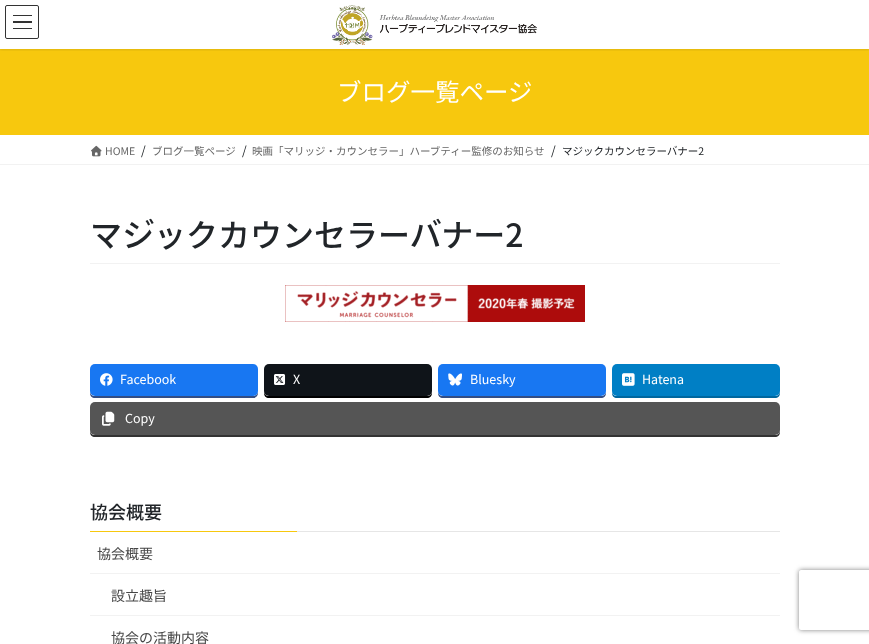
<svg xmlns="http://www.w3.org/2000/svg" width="869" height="644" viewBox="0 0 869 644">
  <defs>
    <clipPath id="clip1"><rect x="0" y="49" width="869" height="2"/></clipPath>
    <clipPath id="clip2"><path d="M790 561H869V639H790ZM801 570H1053C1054 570 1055 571 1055 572V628C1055 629 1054 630 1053 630H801C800 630 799 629 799 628V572C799 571 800 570 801 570Z" clip-rule="evenodd"/></clipPath>
  </defs>
  <rect width="100%" height="100%" fill="rgb(255,255,255)"/>
  <rect x="0" y="49" width="869" height="86" fill="rgb(247,200,14)"/>
  <g clip-path="url(#clip1)">
    <rect x="0" y="1" width="869" height="49" fill="rgba(0,0,0,0.1)" filter="blur(1.5px)"/>
  </g>
  <image x="332" y="5" width="205" height="40" href="pic1.png"/>
  <rect x="13" y="15" width="19" height="1" fill="rgb(51,51,51)"/>
  <rect x="13" y="21" width="19" height="2" fill="rgb(51,51,51)"/>
  <rect x="13" y="28" width="19" height="1" fill="rgb(51,51,51)"/>
  <rect x="5.5" y="5.5" width="33" height="33" rx="1.5" fill="none" stroke="rgb(51,51,51)"/>
  <text x="337" y="101" font-family="Noto Sans JP" font-size="24.5" fill="rgb(255,255,255)">ブログ一覧ページ</text>
  <rect x="0" y="164" width="869" height="1" fill="rgb(242,242,242)"/>
  <image x="91" y="145" width="11" height="12" href="pic2.png"/>
  <text x="105" y="155" font-family="Noto Sans JP" font-size="10.5" fill="rgb(102,102,102)">HOME</text>
  <text x="141" y="155" font-family="Noto Sans JP" font-size="12" fill="rgb(33,37,41)">/</text>
  <text x="152" y="155" font-family="Noto Sans JP" font-size="10.5" fill="rgb(102,102,102)">ブログ一覧ページ</text>
  <text x="242" y="155" font-family="Noto Sans JP" font-size="12" fill="rgb(33,37,41)">/</text>
  <text x="252" y="155" font-family="Noto Sans JP" font-size="10.5" fill="rgb(102,102,102)">映画「マリッジ・カウンセラー」ハーブティー監修のお知らせ</text>
  <text x="551" y="155" font-family="Noto Sans JP" font-size="12" fill="rgb(33,37,41)">/</text>
  <text x="562" y="155" font-family="Noto Sans JP" font-size="10.5" fill="rgb(33,37,41)">マジックカウンセラーバナー2</text>
  <rect x="90" y="263" width="690" height="1" fill="rgb(242,242,242)"/>
  <text x="90" y="247" font-family="Noto Sans JP" font-size="32" font-weight="500" fill="rgb(33,37,41)">マジックカウンセラーバナー2</text>
  <image x="285" y="285" width="300" height="37" href="pic3.png"/>
  <path d="M90 391V393C90 396 92 398 95 398H253C256 398 258 396 258 393V391C258 394 256 396 253 396H95C92 396 90 394 90 391Z" fill="rgb(52,78,132)"/>
  <rect x="90" y="364" width="168" height="32" rx="5" fill="rgb(24,119,242)"/>
  <image x="100" y="373" width="13" height="13" href="pic4.png"/>
  <text x="120" y="384" font-family="Noto Sans JP" font-size="12.5" fill="rgb(255,255,255)">Facebook</text>
  <path d="M264 391V393C264 396 266 398 269 398H427C430 398 432 396 432 393V391C432 394 430 396 427 396H269C266 396 264 394 264 391Z" fill="rgb(0,0,0)"/>
  <rect x="264" y="364" width="168" height="32" rx="5" fill="rgb(15,20,25)"/>
  <image x="274" y="374" width="12" height="11" href="pic5.png"/>
  <text x="293" y="384" font-family="Noto Sans JP" font-size="12.5" fill="rgb(255,255,255)">X</text>
  <path d="M438 391V393C438 396 440 398 443 398H601C604 398 606 396 606 393V391C606 394 604 396 601 396H443C440 396 438 394 438 391Z" fill="rgb(52,78,132)"/>
  <rect x="438" y="364" width="168" height="32" rx="5" fill="rgb(24,119,242)"/>
  <image x="448" y="373" width="14" height="13" href="pic6.png"/>
  <text x="470" y="384" font-family="Noto Sans JP" font-size="12.5" fill="rgb(255,255,255)">Bluesky</text>
  <path d="M612 391V393C612 396 614 398 617 398H775C778 398 780 396 780 393V391C780 394 778 396 775 396H617C614 396 612 394 612 391Z" fill="rgb(0,103,159)"/>
  <rect x="612" y="364" width="168" height="32" rx="5" fill="rgb(0,127,197)"/>
  <image x="622" y="373" width="13" height="13" href="pic7.png"/>
  <text x="642" y="384" font-family="Noto Sans JP" font-size="12.5" fill="rgb(255,255,255)">Hatena</text>
  <path d="M90 430V432C90 435 92 437 95 437H775C778 437 780 435 780 432V430C780 433 778 435 775 435H95C92 435 90 433 90 430Z" fill="rgb(51,51,51)"/>
  <rect x="90" y="402" width="690" height="33" rx="5" fill="rgb(85,85,85)"/>
  <image x="102" y="411" width="13" height="15" href="pic8.png"/>
  <text x="125" y="423" font-family="Noto Sans JP" font-size="12.5" fill="rgb(255,255,255)">Copy</text>
  <rect x="297" y="531" width="483" height="1" fill="rgb(230,230,230)"/>
  <text x="90" y="519" font-family="Noto Sans JP" font-size="18" font-weight="500" fill="rgb(33,37,41)">協会概要</text>
  <rect x="90" y="531" width="207" height="1" fill="rgb(247,200,14)"/>
  <rect x="90" y="573" width="690" height="1" fill="rgb(242,242,242)"/>
  <text x="97" y="559" font-family="Noto Sans JP" font-size="14" fill="rgb(70,70,70)">協会概要</text>
  <rect x="90" y="615" width="690" height="1" fill="rgb(242,242,242)"/>
  <g font-family="Noto Sans JP" font-size="14" fill="rgb(70,70,70)">
    <text x="111" y="601">設立趣旨</text>
    <text x="111" y="643">協会の活動内容</text>
  </g>
  <g clip-path="url(#clip2)">
    <rect x="799" y="570" width="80" height="60" rx="2" fill="rgb(128,128,128)" filter="blur(2.5px)"/>
  </g>
</svg>
